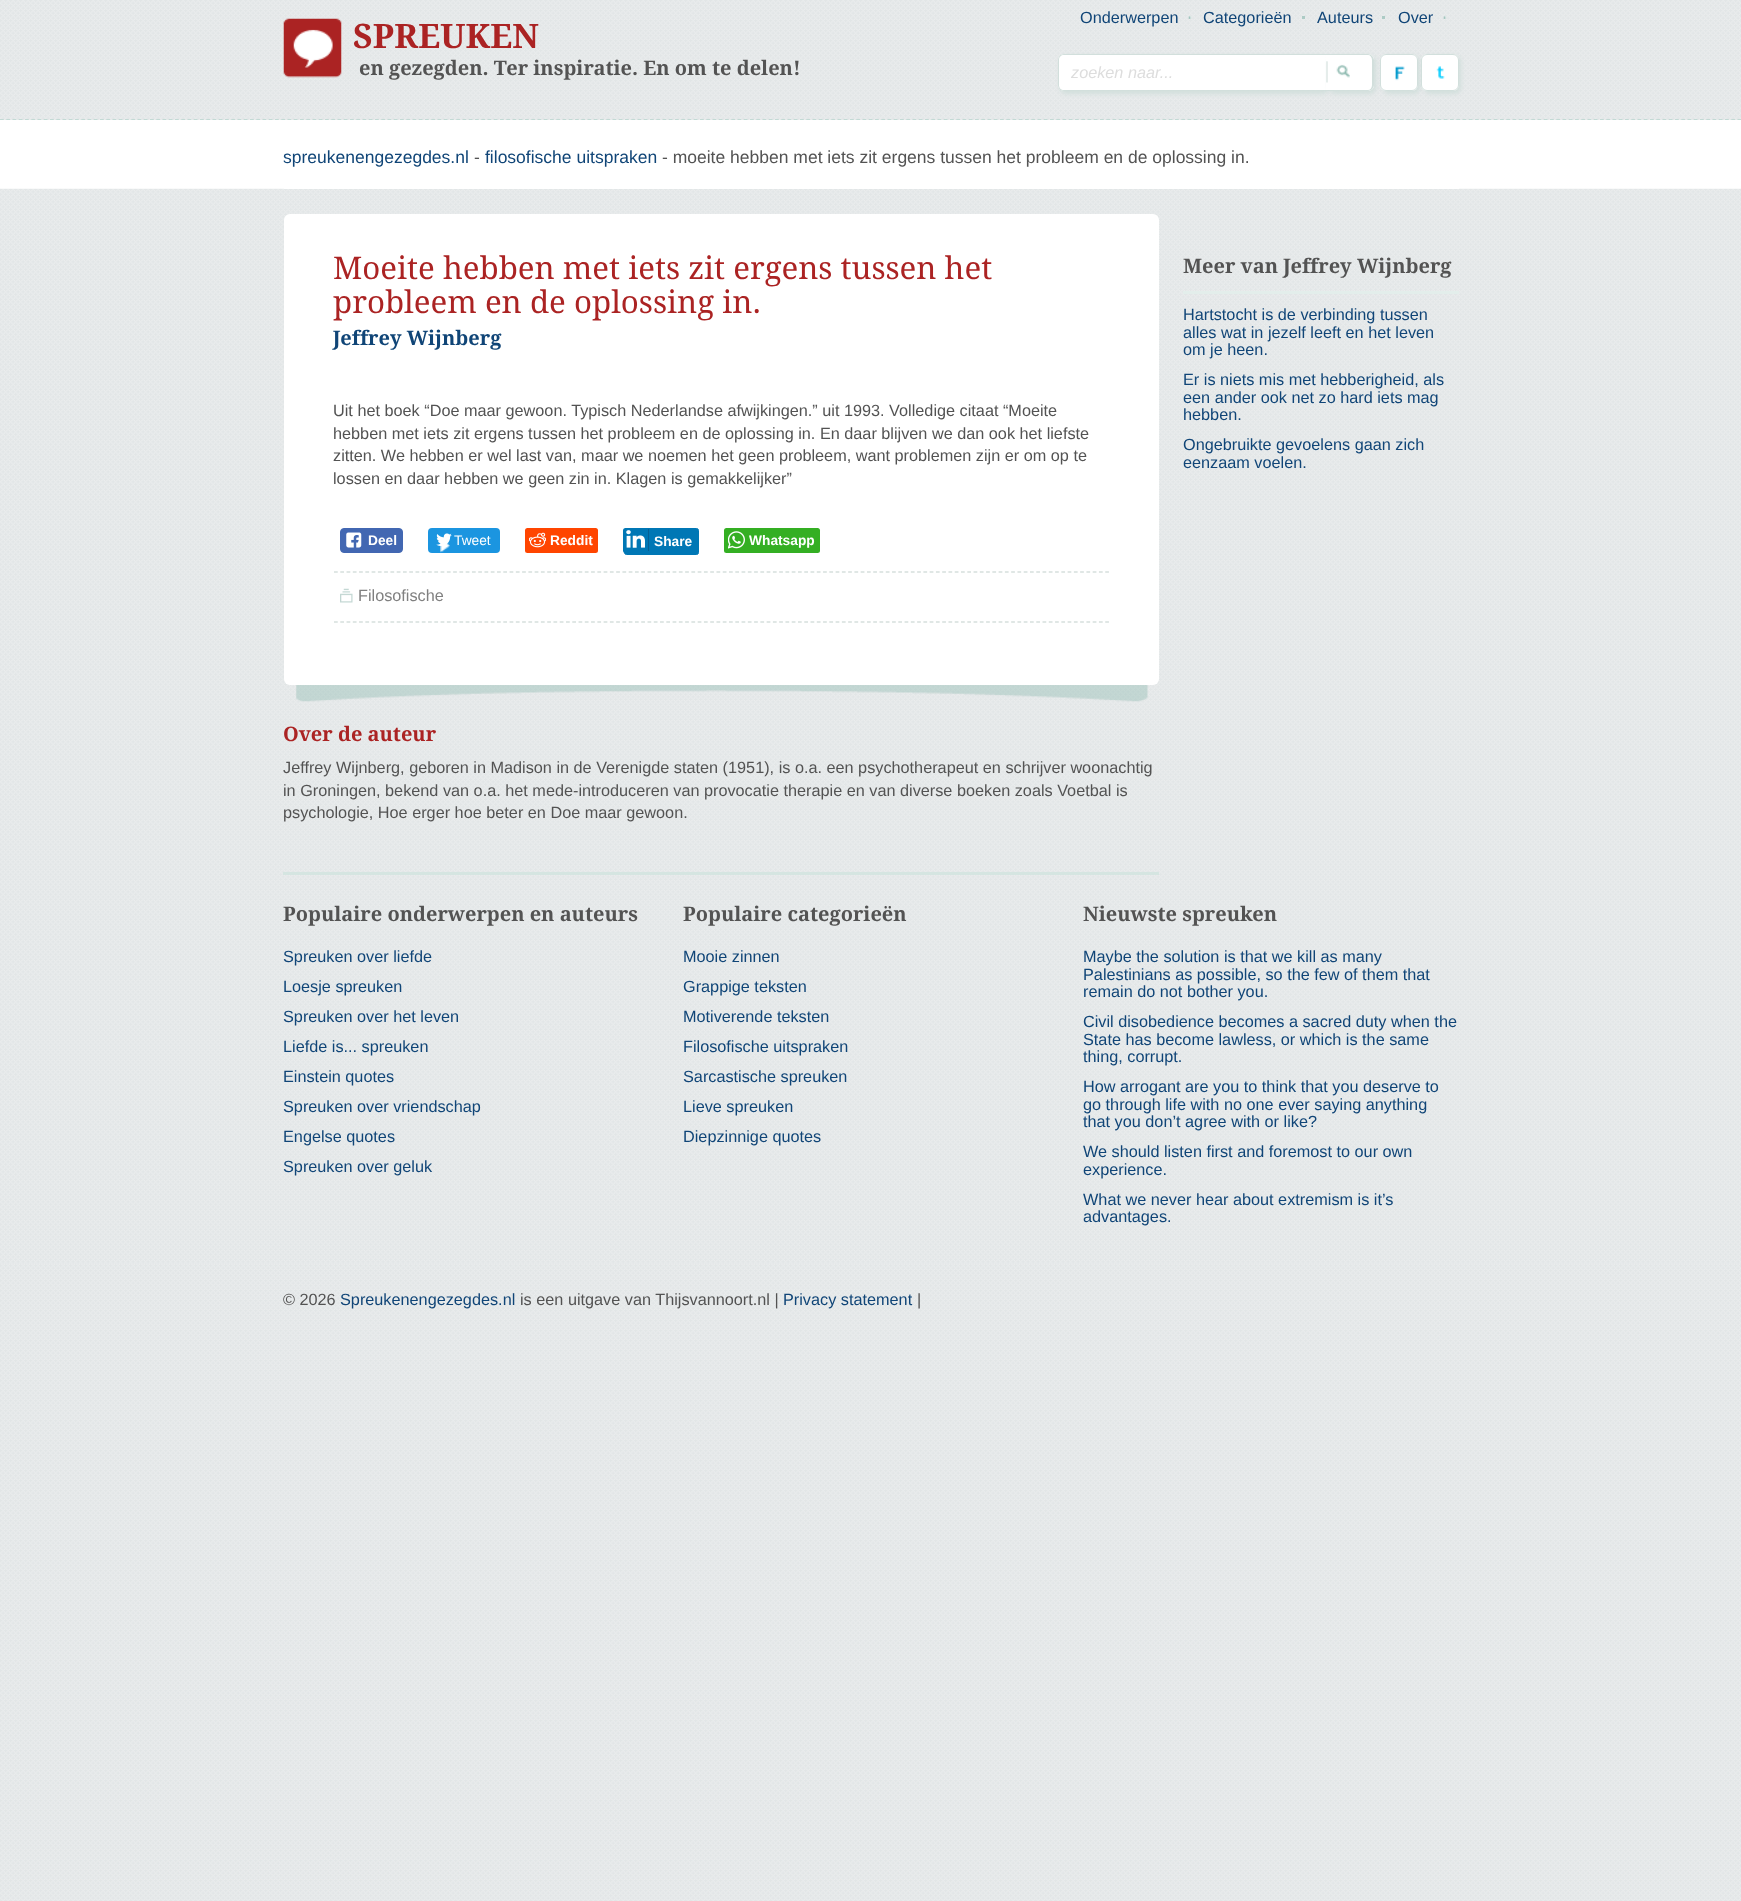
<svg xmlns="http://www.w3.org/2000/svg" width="1741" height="1901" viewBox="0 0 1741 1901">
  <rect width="100%" height="100%" fill="rgb(255,255,255)"/>
  <image x="0" y="0" width="1741" height="1901" href="pic1.png"/>
  <path d="M0 119.5H1741" fill="none" stroke="rgb(195,218,213)" stroke-width="1.2" stroke-dasharray="3.75 2.5"/>
  <image x="283" y="18" width="59" height="60" href="pic2.png"/>
  <text x="353" y="48" font-family="Droid Serif" font-size="33.75" font-weight="bold" fill="rgb(171,35,35)">SPREUKEN</text>
  <text x="359" y="75" font-family="Droid Serif" font-size="20" font-weight="bold" fill="rgb(83,83,83)">en gezegden. Ter inspiratie. En om te delen!</text>
  <image x="1188" y="16" width="4" height="3" href="pic3.png"/>
  <text x="1080" y="23" font-family="Liberation Sans" font-size="16.25" fill="rgb(16,69,119)">Onderwerpen</text>
  <rect x="1302" y="16" width="3" height="3" fill="rgb(172,203,197)"/>
  <text x="1203" y="23" font-family="Liberation Sans" font-size="16.25" fill="rgb(16,69,119)">Categorieën</text>
  <rect x="1382" y="16" width="3" height="3" fill="rgb(172,203,197)"/>
  <text x="1317" y="23" font-family="Liberation Sans" font-size="16.25" fill="rgb(16,69,119)">Auteurs</text>
  <image x="1443" y="16" width="4" height="3" href="pic3.png"/>
  <text x="1398" y="23" font-family="Liberation Sans" font-size="16.25" fill="rgb(16,69,119)">Over</text>
  <rect x="1060" y="56" width="269" height="38" rx="6" fill="rgb(210,223,220)" filter="blur(2px)"/>
  <path d="M1064 54H1326V91H1064C1060.5 91 1058 88.5 1058 85V60C1058 56.5 1060.5 54 1064 54Z" fill="rgb(255,255,255)"/>
  <path d="M1064 54H1326V91H1064C1060 91 1058 88 1058 85V60C1058 57 1060 54 1064 54ZM1064 55H1326V90H1064C1061 90 1059 88 1059 85V60C1059 57 1061 55 1064 55Z" fill="rgb(210,223,220)" fill-rule="evenodd"/>
  <text x="1071" y="78" font-family="Liberation Sans" font-size="16.25" font-style="italic" fill="rgb(221,221,221)">zoeken naar...</text>
  <rect x="1329" y="56" width="47" height="38" rx="6" fill="rgb(210,223,220)" filter="blur(2px)"/>
  <path d="M1326 54H1368C1371.5 54 1374 56.5 1374 60V85C1374 88.5 1371.5 91 1368 91H1326Z" fill="rgb(255,255,255)"/>
  <image x="1326" y="61" width="24" height="22" href="pic4.png"/>
  <path d="M1326 54H1368C1371 54 1374 57 1374 60V85C1374 88 1371 91 1368 91H1326ZM1326 55H1368C1370 55 1372 57 1372 60V85C1372 88 1370 90 1368 90H1326Z" fill="rgb(210,223,220)" fill-rule="evenodd"/>
  <rect x="1383" y="56" width="37" height="38" rx="6" fill="rgb(210,223,220)" filter="blur(2px)"/>
  <rect x="1380" y="54" width="38" height="37" rx="6" fill="rgb(255,255,255)"/>
  <image x="1395" y="66" width="10" height="15" href="pic5.png"/>
  <rect x="1380.5" y="54.5" width="37" height="36" rx="5.5" fill="none" stroke="rgb(210,223,220)"/>
  <rect x="1424" y="56" width="37" height="38" rx="6" fill="rgb(210,223,220)" filter="blur(2px)"/>
  <rect x="1421" y="54" width="38" height="37" rx="6" fill="rgb(255,255,255)"/>
  <image x="1436" y="66" width="9" height="13" href="pic6.png"/>
  <rect x="1421.5" y="54.5" width="37" height="36" rx="5.5" fill="none" stroke="rgb(210,223,220)"/>
  <rect x="0" y="120" width="1741" height="69" fill="rgb(255,255,255)"/>
  <image x="0" y="188" width="1741" height="1076" href="pic7.png"/>
  <rect x="284" y="188" width="1175" height="1" fill="rgb(255,255,255)"/>
  <text x="283" y="163" font-family="Liberation Sans" font-size="17.5" fill="rgb(16,69,119)">spreukenengezegdes.nl</text>
  <text x="474" y="163" font-family="Liberation Sans" font-size="17.5" fill="rgb(83,83,83)">-</text>
  <text x="485" y="163" font-family="Liberation Sans" font-size="17.5" fill="rgb(16,69,119)">filosofische uitspraken</text>
  <text x="662" y="163" font-family="Liberation Sans" font-size="17.5" fill="rgb(83,83,83)">- moeite hebben met iets zit ergens tussen het probleem en de oplossing in.</text>
  <rect x="283" y="872" width="876" height="3" fill="rgb(213,229,225)"/>
  <rect x="284" y="214" width="875" height="471" rx="6" fill="rgb(255,255,255)"/>
  <g font-family="Droid Serif" font-size="31.25" fill="rgb(171,35,35)">
    <text>
      <tspan x="333" y="279">Moeite hebben met iets zit ergens tussen het</tspan>
      <tspan x="333" y="313">probleem en de oplossing in.</tspan>
    </text>
  </g>
  <text x="333" y="345" font-family="Droid Serif" font-size="20" font-weight="bold" fill="rgb(16,69,119)">Jeffrey Wijnberg</text>
  <g font-family="Liberation Sans" font-size="16.25" fill="rgb(83,83,83)">
    <text>
      <tspan x="333" y="416">Uit het boek “Doe maar gewoon. Typisch Nederlandse afwijkingen.” uit 1993. Volledige citaat “Moeite</tspan>
      <tspan x="333" y="439">hebben met iets zit ergens tussen het probleem en de oplossing in. En daar blijven we dan ook het liefste</tspan>
      <tspan x="333" y="461">zitten. We hebben er wel last van, maar we noemen het geen probleem, want problemen zijn er om op te</tspan>
      <tspan x="333" y="484">lossen en daar hebben we geen zin in. Klagen is gemakkelijker”</tspan>
    </text>
  </g>
  <rect x="340.5" y="528.5" width="62" height="24" rx="3.5" fill="rgb(66,103,178)" stroke="rgb(66,103,178)"/>
  <image x="346" y="532" width="16" height="16" href="pic8.png"/>
  <text x="368" y="545" font-family="Liberation Sans" font-size="13.75" font-weight="bold" fill="rgb(255,255,255)">Deel</text>
  <rect x="428" y="528" width="72" height="25" rx="4" fill="rgb(27,149,224)"/>
  <image x="440" y="542" width="10" height="11" href="pic9.png"/>
  <image x="436" y="533" width="16" height="13" href="pic10.png"/>
  <text x="454" y="545" font-family="Liberation Sans" font-size="13.75" fill="rgb(255,255,255)">Tweet</text>
  <rect x="525" y="528" width="73" height="25" rx="2.5" fill="rgb(255,69,0)"/>
  <image x="529" y="532" width="17" height="16" href="pic11.png"/>
  <text x="550" y="545" font-family="Liberation Sans" font-size="13.75" font-weight="bold" fill="rgb(255,255,255)">Reddit</text>
  <rect x="624.5" y="528.5" width="74" height="26" rx="2" fill="rgb(0,119,181)" stroke="rgb(0,119,181)"/>
  <rect x="623" y="528" width="26" height="25" rx="2.5" fill="rgb(0,119,181)"/>
  <rect x="648" y="529" width="1" height="22" fill="rgb(6,96,148)"/>
  <image x="626" y="530" width="19" height="18" href="pic12.png"/>
  <text x="654" y="546" font-family="Liberation Sans" font-size="13.75" font-weight="bold" fill="rgb(255,255,255)">Share</text>
  <rect x="724" y="528" width="96" height="25" rx="2.5" fill="rgb(52,175,35)"/>
  <image x="728" y="531" width="17" height="18" href="pic13.png"/>
  <text x="749" y="545" font-family="Liberation Sans" font-size="13.75" font-weight="bold" fill="rgb(255,255,255)">Whatsapp</text>
  <path d="M334 572H1109" fill="none" stroke="rgb(194,207,204)" stroke-width="1.2" stroke-dasharray="3.75 2.52"/>
  <path d="M334 622H1109" fill="none" stroke="rgb(194,207,204)" stroke-width="1.2" stroke-dasharray="3.75 2.52"/>
  <image x="340" y="588" width="13" height="15" href="pic14.png"/>
  <text x="358" y="601" font-family="Liberation Sans" font-size="16.25" fill="rgb(128,128,128)">Filosofische</text>
  <image x="296" y="685" width="852" height="17" href="pic15.png"/>
  <text x="283" y="741" font-family="Droid Serif" font-size="20" font-weight="bold" fill="rgb(171,35,35)">Over de auteur</text>
  <g font-family="Liberation Sans" font-size="16.25" fill="rgb(83,83,83)">
    <text>
      <tspan x="283" y="773">Jeffrey Wijnberg, geboren in Madison in de Verenigde staten (1951), is o.a. een psychotherapeut en schrijver woonachtig</tspan>
      <tspan x="283" y="796">in Groningen, bekend van o.a. het mede-introduceren van provocatie therapie en van diverse boeken zoals Voetbal is</tspan>
      <tspan x="283" y="818">psychologie, Hoe erger hoe beter en Doe maar gewoon.</tspan>
    </text>
  </g>
  <rect x="1183" y="291" width="276" height="3" fill="rgb(227,238,235)"/>
  <text x="1183" y="273" font-family="Droid Serif" font-size="20" font-weight="bold" fill="rgb(83,83,83)">Meer van Jeffrey Wijnberg</text>
  <g font-family="Liberation Sans" font-size="16.25" fill="rgb(16,69,119)">
    <text>
      <tspan x="1183" y="320">Hartstocht is de verbinding tussen</tspan>
      <tspan x="1183" y="338">alles wat in jezelf leeft en het leven</tspan>
      <tspan x="1183" y="355">om je heen.</tspan>
      <tspan x="1183" y="385">Er is niets mis met hebberigheid, als</tspan>
      <tspan x="1183" y="403">een ander ook net zo hard iets mag</tspan>
      <tspan x="1183" y="420">hebben.</tspan>
      <tspan x="1183" y="450">Ongebruikte gevoelens gaan zich</tspan>
      <tspan x="1183" y="468">eenzaam voelen.</tspan>
    </text>
  </g>
  <text x="283" y="921" font-family="Droid Serif" font-size="20" font-weight="bold" fill="rgb(83,83,83)">Populaire onderwerpen en auteurs</text>
  <g font-family="Liberation Sans" font-size="16.25" fill="rgb(16,69,119)">
    <text>
      <tspan x="283" y="962">Spreuken over liefde</tspan>
      <tspan x="283" y="992">Loesje spreuken</tspan>
      <tspan x="283" y="1022">Spreuken over het leven</tspan>
      <tspan x="283" y="1052">Liefde is... spreuken</tspan>
      <tspan x="283" y="1082">Einstein quotes</tspan>
      <tspan x="283" y="1112">Spreuken over vriendschap</tspan>
      <tspan x="283" y="1142">Engelse quotes</tspan>
      <tspan x="283" y="1172">Spreuken over geluk</tspan>
    </text>
  </g>
  <text x="683" y="921" font-family="Droid Serif" font-size="20" font-weight="bold" fill="rgb(83,83,83)">Populaire categorieën</text>
  <g font-family="Liberation Sans" font-size="16.25" fill="rgb(16,69,119)">
    <text>
      <tspan x="683" y="962">Mooie zinnen</tspan>
      <tspan x="683" y="992">Grappige teksten</tspan>
      <tspan x="683" y="1022">Motiverende teksten</tspan>
      <tspan x="683" y="1052">Filosofische uitspraken</tspan>
      <tspan x="683" y="1082">Sarcastische spreuken</tspan>
      <tspan x="683" y="1112">Lieve spreuken</tspan>
      <tspan x="683" y="1142">Diepzinnige quotes</tspan>
    </text>
  </g>
  <text x="1083" y="921" font-family="Droid Serif" font-size="20" font-weight="bold" fill="rgb(83,83,83)">Nieuwste spreuken</text>
  <g font-family="Liberation Sans" font-size="16.25" fill="rgb(16,69,119)">
    <text>
      <tspan x="1083" y="962">Maybe the solution is that we kill as many</tspan>
      <tspan x="1083" y="980">Palestinians as possible, so the few of them that</tspan>
      <tspan x="1083" y="997">remain do not bother you.</tspan>
      <tspan x="1083" y="1027">Civil disobedience becomes a sacred duty when the</tspan>
      <tspan x="1083" y="1045">State has become lawless, or which is the same</tspan>
      <tspan x="1083" y="1062">thing, corrupt.</tspan>
      <tspan x="1083" y="1092">How arrogant are you to think that you deserve to</tspan>
      <tspan x="1083" y="1110">go through life with no one ever saying anything</tspan>
      <tspan x="1083" y="1127">that you don’t agree with or like?</tspan>
      <tspan x="1083" y="1157">We should listen first and foremost to our own</tspan>
      <tspan x="1083" y="1175">experience.</tspan>
      <tspan x="1083" y="1205">What we never hear about extremism is it’s</tspan>
      <tspan x="1083" y="1222">advantages.</tspan>
    </text>
  </g>
  <text x="283" y="1305" font-family="Liberation Sans" font-size="16.25" fill="rgb(83,83,83)">© 2026</text>
  <text x="340" y="1305" font-family="Liberation Sans" font-size="16.25" fill="rgb(16,69,119)">Spreukenengezegdes.nl</text>
  <text x="520" y="1305" font-family="Liberation Sans" font-size="16.25" fill="rgb(83,83,83)">is een uitgave van Thijsvannoort.nl |</text>
  <text x="783" y="1305" font-family="Liberation Sans" font-size="16.25" fill="rgb(16,69,119)">Privacy statement</text>
  <text x="917" y="1305" font-family="Liberation Sans" font-size="16.25" fill="rgb(83,83,83)">|</text>
</svg>
